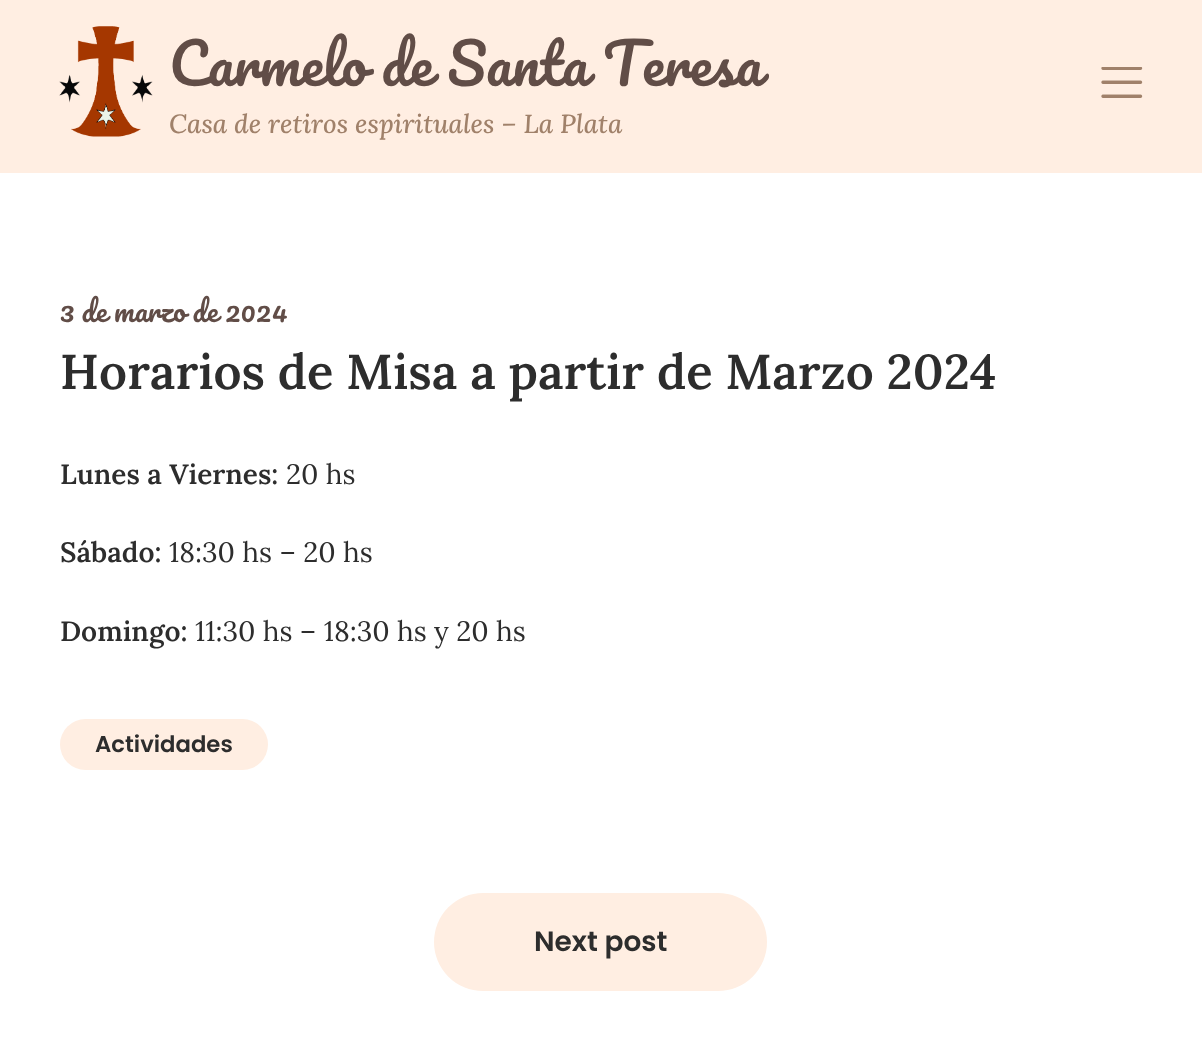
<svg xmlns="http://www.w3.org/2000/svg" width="1202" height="1042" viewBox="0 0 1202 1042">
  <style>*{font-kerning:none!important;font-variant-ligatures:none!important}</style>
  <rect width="100%" height="100%" fill="rgb(255,255,255)"/>
  <rect x="0" y="0" width="1202" height="173" fill="rgb(255,238,226)"/>
  <image x="59" y="26" width="94" height="111" href="pic1.png"/>
  <text x="169" y="86" font-family="Pacifico" font-size="56" fill="rgb(97,77,71)">Carmelo de Santa Teresa</text>
  <text x="169" y="133" font-family="Lora" font-size="26.25" font-weight="500" font-style="italic" fill="rgb(160,129,106)">Casa de retiros espirituales – La Plata</text>
  <image x="1101" y="67" width="42" height="31" href="pic2.png"/>
  <text x="60" y="322" word-spacing="-0.5" font-family="Pacifico" font-size="28" fill="rgb(97,77,71)">3 de marzo de 2024</text>
  <text x="60" y="389" font-family="Lora" font-size="49" font-weight="600" fill="rgb(45,45,45)">Horarios de Misa a partir de Marzo 2024</text>
  <text x="60" y="484" font-family="Lora" font-size="28" font-weight="600" fill="rgb(45,45,45)">Lunes a Viernes:</text>
  <text x="286" y="484" font-family="Lora" font-size="28" fill="rgb(45,45,45)">20 hs</text>
  <text x="60" y="562" font-family="Lora" font-size="28" font-weight="600" fill="rgb(45,45,45)">Sábado:</text>
  <text x="169" y="562" font-family="Lora" font-size="28" fill="rgb(45,45,45)">18:30 hs – 20 hs</text>
  <text x="60" y="641" font-family="Lora" font-size="28" font-weight="600" fill="rgb(45,45,45)">Domingo:</text>
  <text x="195" y="641" font-family="Lora" font-size="28" fill="rgb(45,45,45)">11:30 hs – 18:30 hs y 20 hs</text>
  <rect x="60" y="719" width="208" height="51" rx="25.5" fill="rgb(255,238,226)"/>
  <text x="95" y="752" font-family="Poppins" font-size="22.75" font-weight="600" fill="rgb(45,45,45)">Actividades</text>
  <rect x="434" y="893" width="333" height="98" rx="49" fill="rgb(255,238,226)"/>
  <text x="534" y="951" font-family="Poppins" font-size="28" font-weight="600" fill="rgb(45,45,45)">Next post</text>
</svg>
